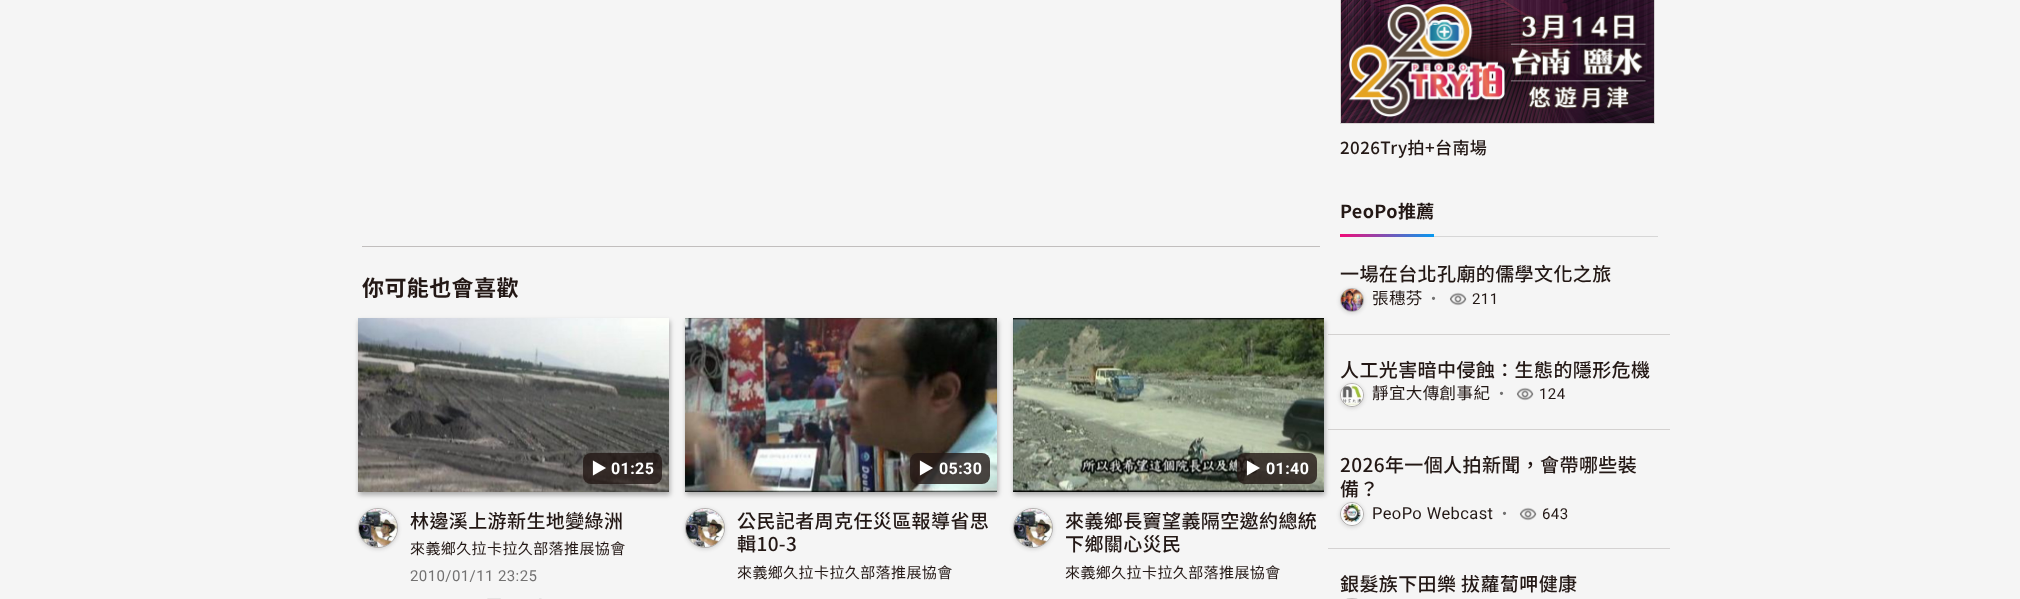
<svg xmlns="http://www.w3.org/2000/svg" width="2020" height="599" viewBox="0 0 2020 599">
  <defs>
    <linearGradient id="g1" gradientUnits="userSpaceOnUse" x1="1434" y1="236" x2="1340" y2="236"><stop offset="0" stop-color="rgb(5,153,240)"/><stop offset="1" stop-color="rgb(242,10,120)"/></linearGradient>
  </defs>
  <rect width="100%" height="100%" fill="rgb(245,245,245)"/>
  <rect x="362" y="246" width="958" height="1" fill="rgb(193,190,189)"/>
  <text x="362" y="296" font-family="Noto Sans TC" font-size="22" font-weight="bold" letter-spacing="0.4" fill="rgb(35,24,21)">你可能也會喜歡</text>
  <rect x="359" y="321" width="311" height="174" fill="rgba(0,0,0,0.3)" filter="blur(2.5px)"/>
  <image x="358" y="318" width="311" height="174" href="pic1.png"/>
  <rect x="583" y="453" width="79" height="31" rx="8" fill="rgba(35,24,21,0.8)"/>
  <text x="591" y="474" font-family="Noto Sans TC" font-size="16" font-weight="bold" letter-spacing="0.4" fill="rgb(255,255,255)">▶︎</text>
  <text x="611" y="474" font-family="Roboto" font-size="16" font-weight="bold" letter-spacing="0.4" fill="rgb(255,255,255)">01:25</text>
  <rect x="358" y="509" width="40" height="40" rx="20" fill="rgba(12,12,13,0.1)" filter="blur(2px)"/>
  <rect x="358" y="509" width="40" height="40" rx="20" fill="rgba(12,12,13,0.05)" filter="blur(2px)"/>
  <circle cx="378" cy="528" r="19.5" fill="none" stroke="rgba(35,24,21,0.25)"/>
  <image x="359" y="509" width="38" height="38" href="pic2.png"/>
  <text x="410" y="528" font-family="Noto Sans TC" font-size="19" font-weight="500" letter-spacing="0.4" fill="rgb(35,24,21)">林邊溪上游新生地變綠洲</text>
  <text x="410" y="554" font-family="Noto Sans TC" font-size="15" letter-spacing="0.4" fill="rgb(35,24,21)">來義鄉久拉卡拉久部落推展協會</text>
  <text x="410" y="581" font-family="Roboto" font-size="15" letter-spacing="0.4" fill="rgb(114,113,113)">2010/01/11 23:25</text>
  <image x="487" y="598" width="14" height="1" href="pic3.png"/>
  <image x="539" y="598" width="3" height="1" href="pic4.png"/>
  <rect x="686" y="321" width="312" height="174" fill="rgba(0,0,0,0.3)" filter="blur(2.5px)"/>
  <image x="685" y="318" width="312" height="174" href="pic5.png"/>
  <rect x="910" y="453" width="80" height="31" rx="8" fill="rgba(35,24,21,0.8)"/>
  <text x="918" y="474" font-family="Noto Sans TC" font-size="16" font-weight="bold" letter-spacing="0.4" fill="rgb(255,255,255)">▶︎</text>
  <text x="939" y="474" font-family="Roboto" font-size="16" font-weight="bold" letter-spacing="0.4" fill="rgb(255,255,255)">05:30</text>
  <rect x="685" y="509" width="40" height="40" rx="20" fill="rgba(12,12,13,0.1)" filter="blur(2px)"/>
  <rect x="685" y="509" width="40" height="40" rx="20" fill="rgba(12,12,13,0.05)" filter="blur(2px)"/>
  <circle cx="705" cy="528" r="19.5" fill="none" stroke="rgba(35,24,21,0.25)"/>
  <image x="686" y="509" width="38" height="38" href="pic6.png"/>
  <g font-family="Noto Sans TC" font-size="19" font-weight="500" letter-spacing="0.4" fill="rgb(35,24,21)">
    <text>
      <tspan x="737" y="528">公民記者周克任災區報導省思</tspan>
      <tspan x="737" y="551">輯10-3</tspan>
    </text>
  </g>
  <text x="737" y="578" font-family="Noto Sans TC" font-size="15" letter-spacing="0.4" fill="rgb(35,24,21)">來義鄉久拉卡拉久部落推展協會</text>
  <rect x="1014" y="321" width="311" height="174" fill="rgba(0,0,0,0.3)" filter="blur(2.5px)"/>
  <image x="1013" y="318" width="311" height="174" href="pic7.png"/>
  <rect x="1237" y="453" width="80" height="31" rx="8" fill="rgba(35,24,21,0.8)"/>
  <text x="1245" y="474" font-family="Noto Sans TC" font-size="16" font-weight="bold" letter-spacing="0.4" fill="rgb(255,255,255)">▶︎</text>
  <text x="1266" y="474" font-family="Roboto" font-size="16" font-weight="bold" letter-spacing="0.4" fill="rgb(255,255,255)">01:40</text>
  <rect x="1013" y="509" width="40" height="40" rx="20" fill="rgba(12,12,13,0.1)" filter="blur(2px)"/>
  <rect x="1013" y="509" width="40" height="40" rx="20" fill="rgba(12,12,13,0.05)" filter="blur(2px)"/>
  <circle cx="1033" cy="528" r="19.5" fill="none" stroke="rgba(35,24,21,0.25)"/>
  <image x="1014" y="509" width="38" height="38" href="pic8.png"/>
  <g font-family="Noto Sans TC" font-size="19" font-weight="500" letter-spacing="0.4" fill="rgb(35,24,21)">
    <text>
      <tspan x="1065" y="528">來義鄉長竇望義隔空邀約總統</tspan>
      <tspan x="1065" y="551">下鄉關心災民</tspan>
    </text>
  </g>
  <text x="1065" y="578" font-family="Noto Sans TC" font-size="15" letter-spacing="0.4" fill="rgb(35,24,21)">來義鄉久拉卡拉久部落推展協會</text>
  <rect x="1340.5" y="-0.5" width="314" height="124" fill="none" stroke="rgb(214,212,211)"/>
  <image x="1341" y="0" width="313" height="123" href="pic9.png"/>
  <text x="1340" y="154" font-family="Noto Sans TC" font-size="17" font-weight="500" letter-spacing="0.4" fill="rgb(35,24,21)">2026Try拍+台南場</text>
  <rect x="1434" y="236" width="224" height="1" fill="rgb(214,214,214)"/>
  <text x="1340" y="218" font-family="Noto Sans TC" font-size="18" font-weight="bold" letter-spacing="0.4" fill="rgb(35,24,21)">PeoPo推薦</text>
  <rect x="1340" y="234" width="94" height="3" fill="url(#g1)"/>
  <rect x="1328" y="334" width="342" height="1" fill="rgba(35,24,21,0.16)"/>
  <text x="1340" y="281" font-family="Noto Sans TC" font-size="19" font-weight="500" letter-spacing="0.4" fill="rgb(35,24,21)">一場在台北孔廟的儒學文化之旅</text>
  <rect x="1340" y="289" width="24" height="24" rx="12" fill="rgba(12,12,13,0.1)" filter="blur(2px)"/>
  <rect x="1340" y="289" width="24" height="24" rx="12" fill="rgba(12,12,13,0.05)" filter="blur(2px)"/>
  <circle cx="1352" cy="300" r="11.5" fill="none" stroke="rgba(35,24,21,0.25)"/>
  <image x="1341" y="289" width="22" height="22" href="pic10.png"/>
  <text x="1372" y="304" font-family="Noto Sans TC" font-size="16.5" letter-spacing="0.4" fill="rgb(35,24,21)">張穗芬</text>
  <text x="1426" y="304" font-family="Noto Sans TC" font-size="15" letter-spacing="0.4" fill="rgb(114,113,113)">・</text>
  <image x="1449" y="292" width="18" height="14" href="pic11.png"/>
  <text x="1472" y="304" font-family="Roboto" font-size="15" letter-spacing="0.4" fill="rgb(35,24,21)">211</text>
  <rect x="1328" y="429" width="342" height="1" fill="rgba(35,24,21,0.16)"/>
  <text x="1340" y="377" font-family="Noto Sans TC" font-size="19" font-weight="500" letter-spacing="0.4" fill="rgb(35,24,21)">人工光害暗中侵蝕：生態的隱形危機</text>
  <rect x="1340" y="384" width="24" height="24" rx="12" fill="rgba(12,12,13,0.1)" filter="blur(2px)"/>
  <rect x="1340" y="384" width="24" height="24" rx="12" fill="rgba(12,12,13,0.05)" filter="blur(2px)"/>
  <circle cx="1352" cy="395" r="11.5" fill="none" stroke="rgba(35,24,21,0.25)"/>
  <image x="1341" y="384" width="22" height="22" href="pic12.png"/>
  <text x="1372" y="399" font-family="Noto Sans TC" font-size="16.5" letter-spacing="0.4" fill="rgb(35,24,21)">靜宜大傳創事紀</text>
  <text x="1494" y="399" font-family="Noto Sans TC" font-size="15" letter-spacing="0.4" fill="rgb(114,113,113)">・</text>
  <image x="1516" y="387" width="18" height="14" href="pic11.png"/>
  <text x="1539" y="399" font-family="Roboto" font-size="15" letter-spacing="0.4" fill="rgb(35,24,21)">124</text>
  <rect x="1328" y="548" width="342" height="1" fill="rgb(212,210,210)"/>
  <g font-family="Noto Sans TC" font-size="19" font-weight="500" letter-spacing="0.4" fill="rgb(35,24,21)">
    <text>
      <tspan x="1340" y="472">2026年一個人拍新聞，會帶哪些裝</tspan>
      <tspan x="1340" y="496">備？</tspan>
    </text>
  </g>
  <rect x="1340" y="503" width="24" height="24" rx="12" fill="rgba(12,12,13,0.1)" filter="blur(2px)"/>
  <rect x="1340" y="503" width="24" height="24" rx="12" fill="rgba(12,12,13,0.05)" filter="blur(2px)"/>
  <circle cx="1352" cy="514" r="11.5" fill="none" stroke="rgba(35,24,21,0.25)"/>
  <image x="1341" y="503" width="22" height="22" href="pic13.png"/>
  <text x="1372" y="519" font-family="Roboto" font-size="16.5" letter-spacing="0.4" fill="rgb(35,24,21)">PeoPo Webcast</text>
  <text x="1497" y="519" font-family="Noto Sans TC" font-size="15" letter-spacing="0.4" fill="rgb(114,113,113)">・</text>
  <image x="1519" y="507" width="18" height="14" href="pic14.png"/>
  <text x="1542" y="519" font-family="Roboto" font-size="15" letter-spacing="0.4" fill="rgb(35,24,21)">643</text>
  <text x="1340" y="591" font-family="Noto Sans TC" font-size="19" font-weight="500" letter-spacing="0.4" fill="rgb(35,24,21)">銀髮族下田樂 拔蘿蔔呷健康</text>
  <rect x="1340.5" y="598.5" width="23" height="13" rx="11.5" fill="none" stroke="rgba(35,24,21,0.25)"/>
</svg>
